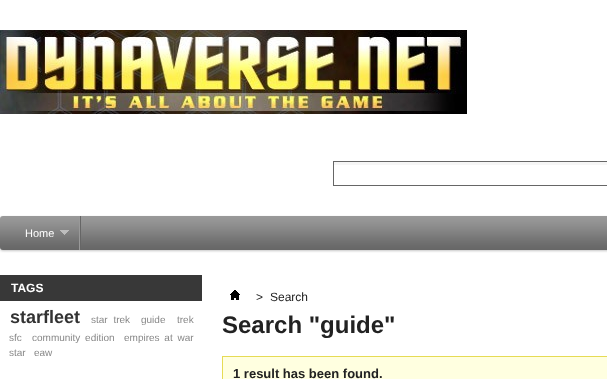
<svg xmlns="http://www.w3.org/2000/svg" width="607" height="379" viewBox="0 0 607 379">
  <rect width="100%" height="100%" fill="rgb(255,255,255)"/>
  <image x="0" y="30" width="467" height="84" href="pic1.png"/>
  <rect x="333" y="162" width="274" height="3" fill="rgb(246,246,246)"/>
  <rect x="333" y="161" width="274" height="1" fill="rgb(102,102,102)"/>
  <rect x="333" y="185" width="274" height="1" fill="rgb(102,102,102)"/>
  <rect x="333" y="161" width="1" height="25" fill="rgb(102,102,102)"/>
  <rect x="0" y="217" width="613" height="34" rx="3" fill="rgb(198,198,198)" filter="blur(1px)"/>
  <image x="0" y="216" width="607" height="34" href="pic2.png"/>
  <image x="79" y="216" width="2" height="34" href="pic3.png"/>
  <text x="25" y="237" font-family="Liberation Sans" font-size="11" fill="rgb(255,255,255)">Home</text>
  <image x="60" y="230" width="9" height="5" href="pic4.png"/>
  <rect x="0" y="275" width="202" height="26" fill="rgb(56,56,56)"/>
  <text x="11" y="292" font-family="Liberation Sans" font-size="12" font-weight="bold" fill="rgb(255,255,255)">TAGS</text>
  <text x="10" y="323" font-family="Liberation Sans" font-size="18" font-weight="bold" fill="rgb(51,51,51)">starfleet</text>
  <g font-family="Liberation Sans" font-size="10" fill="rgb(136,136,136)">
    <text x="91" y="323" word-spacing="3">star trek</text>
    <text x="141" y="323">guide</text>
    <text x="177" y="323">trek</text>
    <text x="9" y="341">sfc</text>
    <text x="32" y="341" word-spacing="2">community edition</text>
    <text x="124" y="341" word-spacing="2">empires at war</text>
    <text x="9" y="356">star</text>
    <text x="34" y="356">eaw</text>
  </g>
  <image x="230" y="290" width="10" height="10" href="pic5.png"/>
  <g font-family="Liberation Sans" font-size="12" fill="rgb(34,34,34)">
    <text x="256" y="301">&gt;</text>
    <text x="270" y="301">Search</text>
  </g>
  <text x="222" y="333" font-family="Liberation Sans" font-size="24" font-weight="bold" fill="rgb(34,34,34)">Search "guide"</text>
  <rect x="222.5" y="356.5" width="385" height="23" fill="rgb(255,255,224)" stroke="rgb(230,219,85)"/>
  <text x="233" y="378" font-family="Liberation Sans" font-size="13" font-weight="bold" fill="rgb(34,34,34)">1 result has been found.</text>
</svg>
